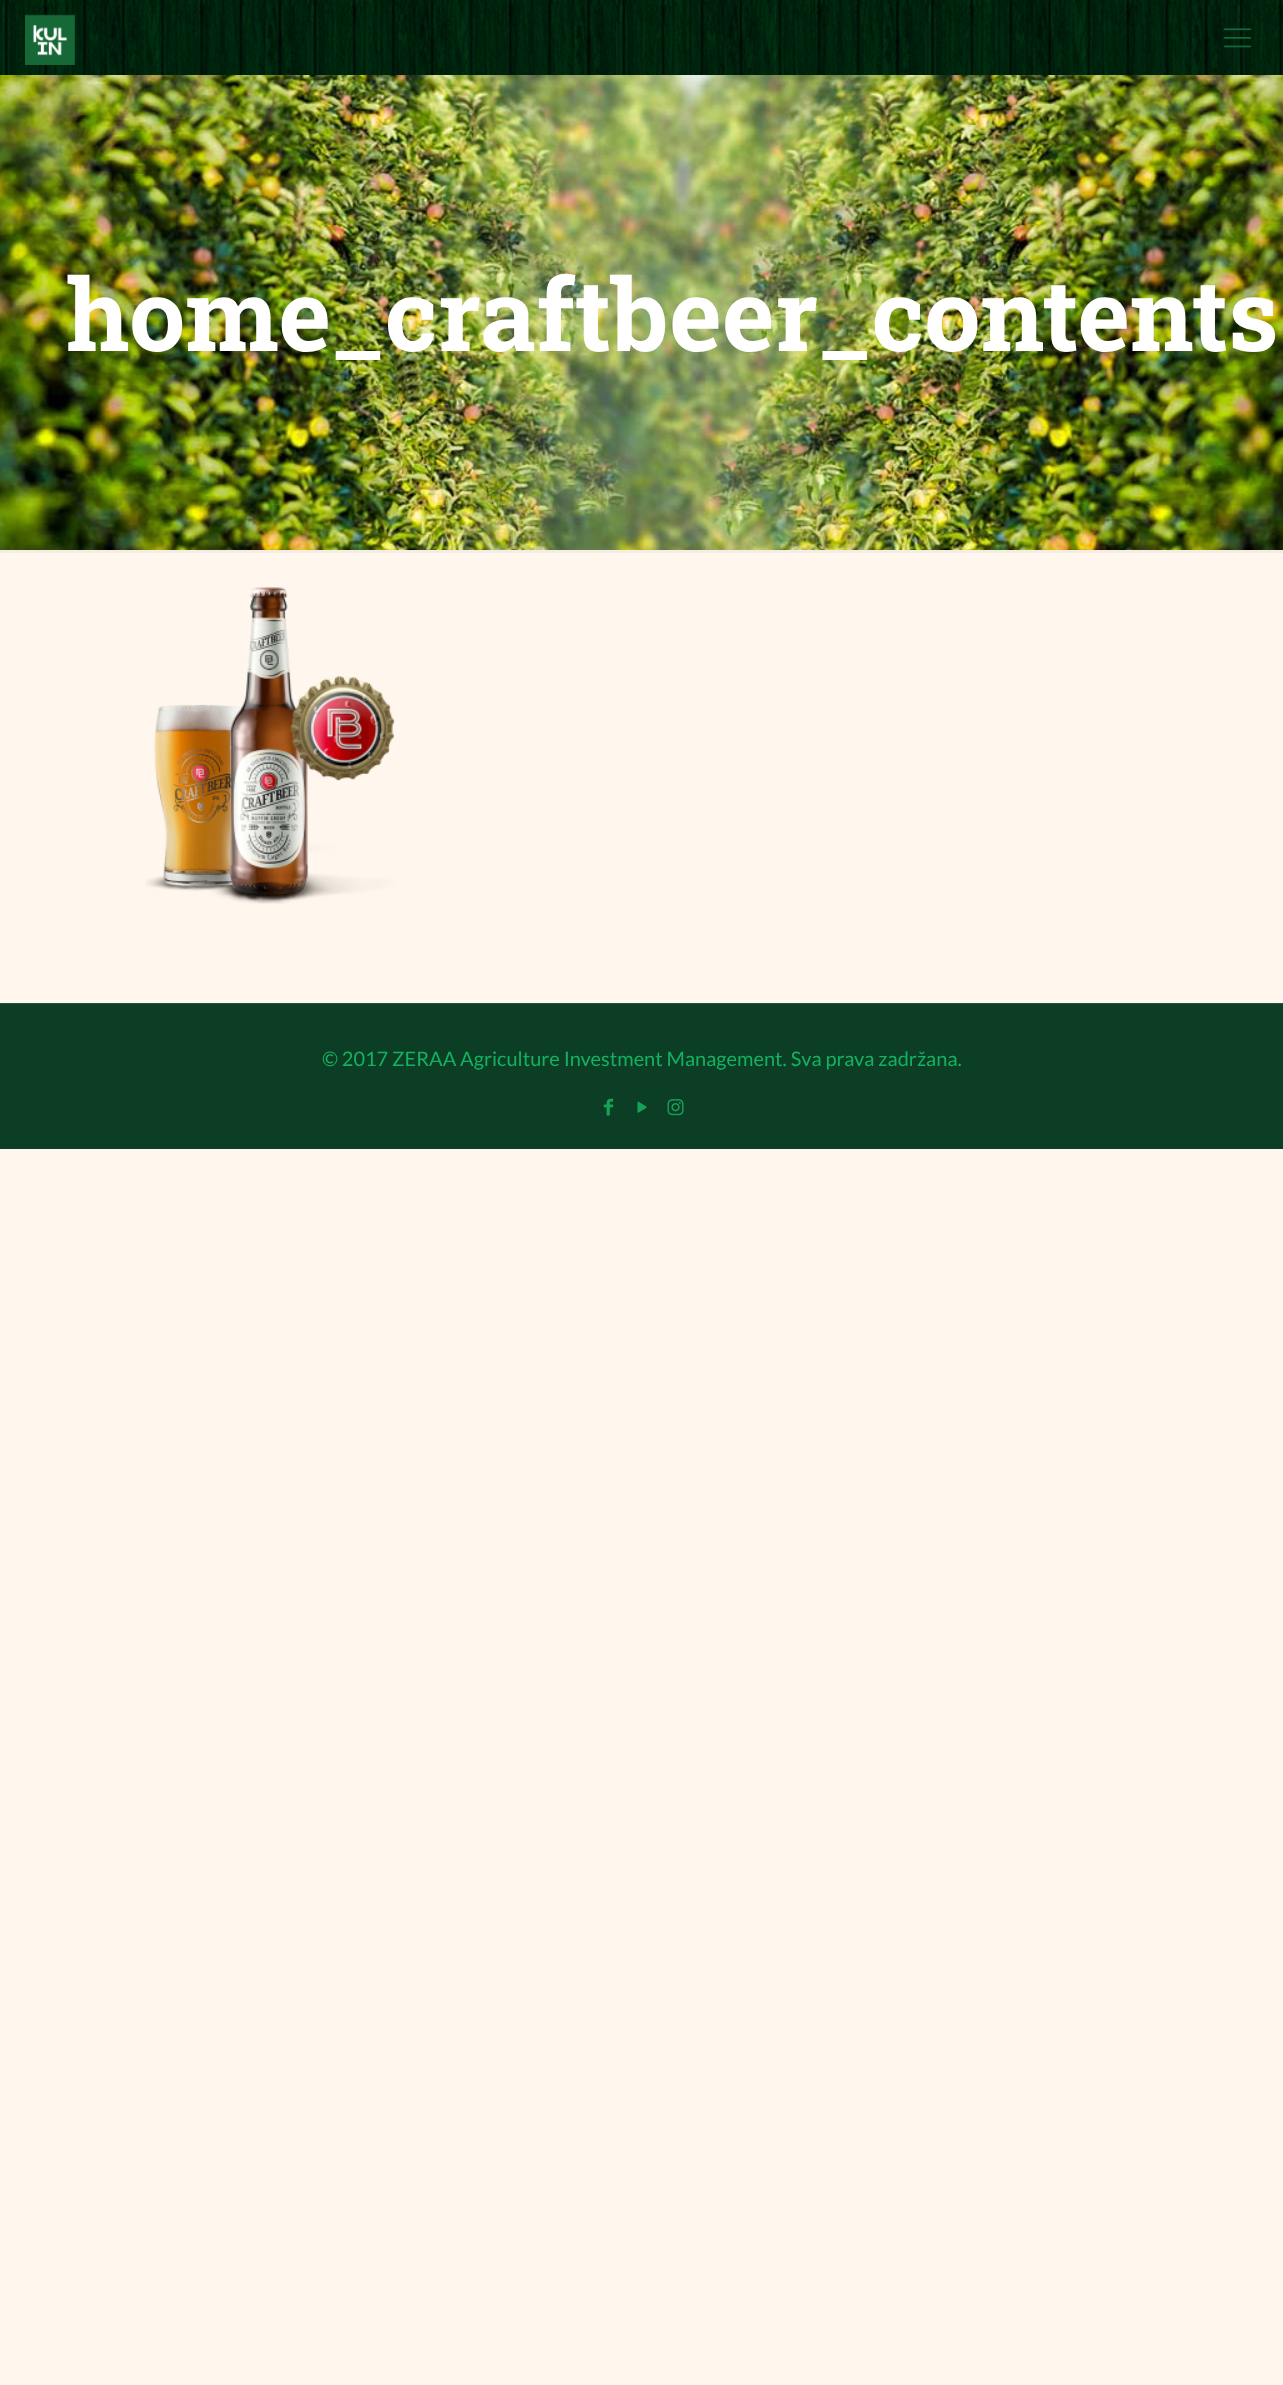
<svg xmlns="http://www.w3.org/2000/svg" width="1283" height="2385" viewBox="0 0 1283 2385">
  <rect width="100%" height="100%" fill="rgb(255,247,237)"/>
  <image x="0" y="0" width="1283" height="75" href="pic1.png"/>
  <image x="25" y="14" width="50" height="51" href="pic2.png"/>
  <image x="1223" y="28" width="29" height="20" href="pic3.png"/>
  <image x="0" y="75" width="1283" height="475" href="pic4.png"/>
  <text x="66" y="351" font-family="Roboto Slab" font-size="100" font-weight="bold" fill="rgb(255,255,255)">home_craftbeer_contents</text>
  <rect x="0" y="550" width="1283" height="3" fill="rgb(245,237,228)"/>
  <image x="145" y="587" width="250" height="317" href="pic5.png"/>
  <rect x="0" y="1004" width="1283" height="145" fill="rgb(11,62,36)"/>
  <rect x="0" y="1003" width="1283" height="1" fill="rgb(35,81,58)"/>
  <text x="322" y="1066" font-family="Lato" font-size="20" fill="rgb(20,178,96)">© 2017 ZERAA Agriculture Investment Management. Sva prava zadržana.</text>
  <image x="603" y="1098" width="11" height="18" href="pic6.png"/>
  <image x="637" y="1101" width="10" height="12" href="pic7.png"/>
  <image x="667" y="1099" width="17" height="17" href="pic8.png"/>
</svg>
